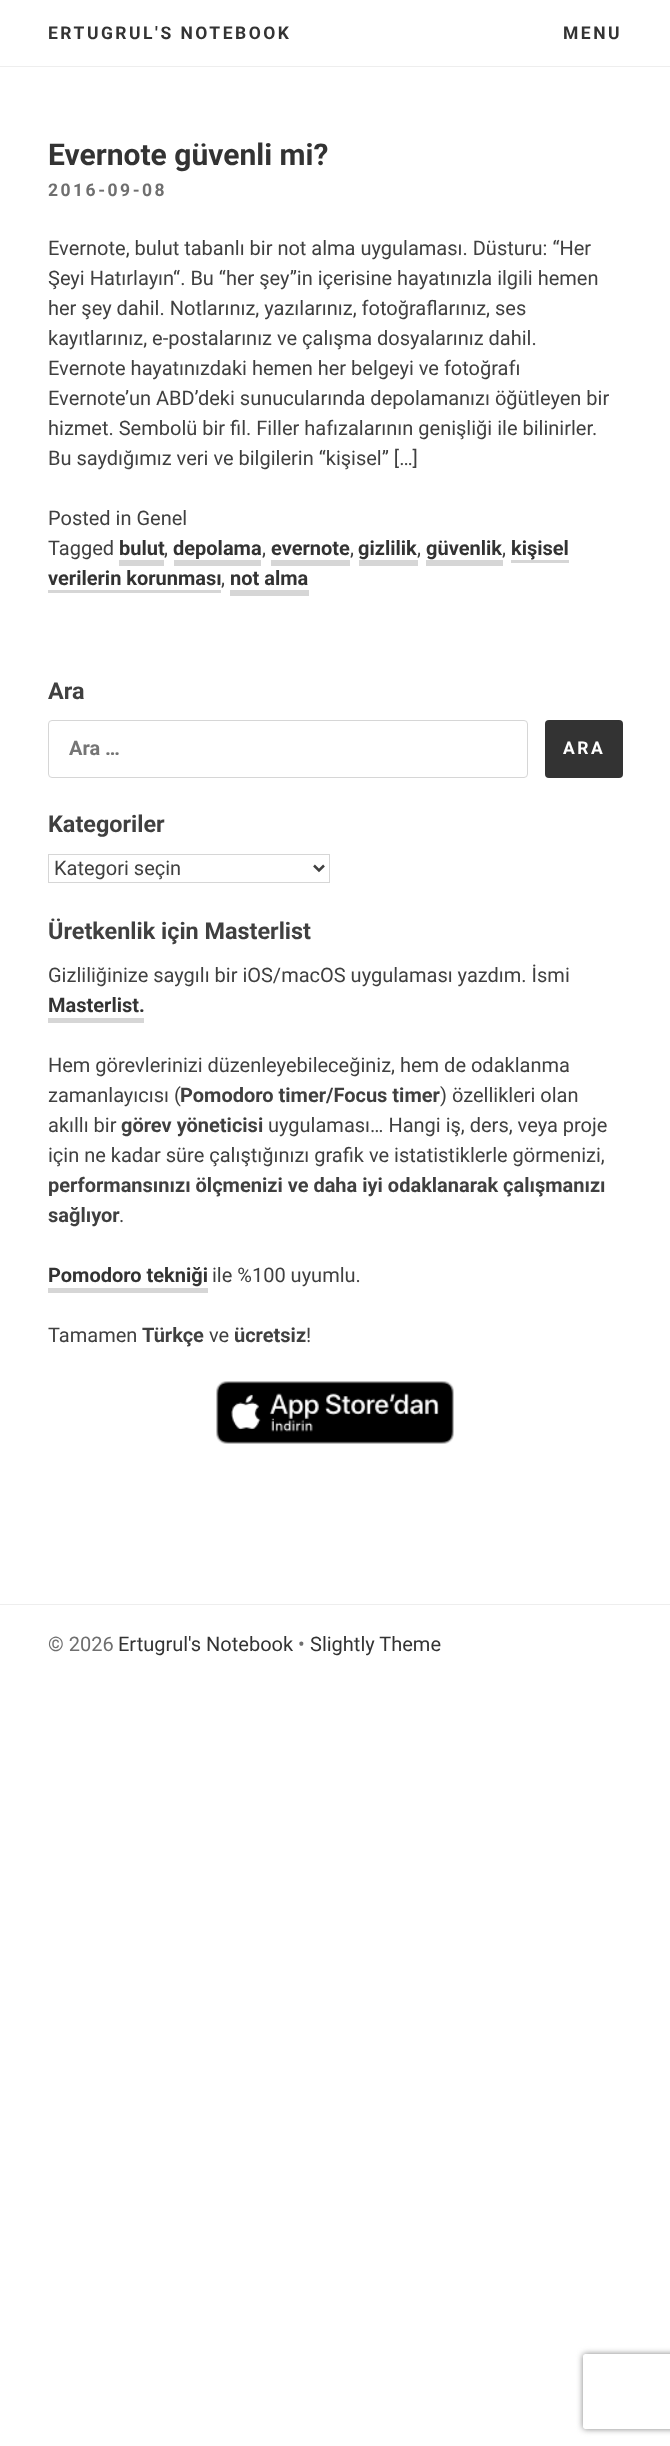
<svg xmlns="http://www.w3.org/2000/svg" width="670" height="2446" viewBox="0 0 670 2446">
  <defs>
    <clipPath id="clip1"><path d="M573 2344H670V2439H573ZM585.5 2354H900.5C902 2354 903 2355 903 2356.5V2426.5C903 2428 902 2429 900.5 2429H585.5C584 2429 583 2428 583 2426.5V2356.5C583 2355 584 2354 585.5 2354Z" clip-rule="evenodd"/></clipPath>
  </defs>
  <rect width="100%" height="100%" fill="rgb(255,255,255)"/>
  <rect x="0" y="66" width="670" height="1" fill="rgb(238,238,238)"/>
  <g font-family="Roboto" font-size="17.5" font-weight="bold" letter-spacing="2.5" fill="rgb(51,51,51)">
    <text x="48" y="39">ERTUGRUL'S NOTEBOOK</text>
    <text x="563" y="39">MENU</text>
  </g>
  <text x="48" y="165" font-family="Roboto" font-size="30" font-weight="bold" fill="rgb(51,51,51)">Evernote güvenli mi?</text>
  <text x="48" y="196" font-family="Roboto" font-size="17.5" font-weight="bold" letter-spacing="2.5" fill="rgb(111,111,111)">2016-09-08</text>
  <g font-family="Roboto" font-size="20" fill="rgb(64,64,64)">
    <text>
      <tspan x="48" y="255">Evernote, bulut tabanlı bir not alma uygulaması. Düsturu: “Her</tspan>
      <tspan x="48" y="285">Şeyi Hatırlayın“. Bu “her şey”in içerisine hayatınızla ilgili hemen</tspan>
      <tspan x="48" y="315">her şey dahil. Notlarınız, yazılarınız, fotoğraflarınız, ses</tspan>
      <tspan x="48" y="345">kayıtlarınız, e-postalarınız ve çalışma dosyalarınız dahil.</tspan>
      <tspan x="48" y="375">Evernote hayatınızdaki hemen her belgeyi ve fotoğrafı</tspan>
      <tspan x="48" y="405">Evernote’un ABD’deki sunucularında depolamanızı öğütleyen bir</tspan>
      <tspan x="48" y="435">hizmet. Sembolü bir fil. Filler hafızalarının genişliği ile bilinirler.</tspan>
      <tspan x="48" y="465">Bu saydığımız veri ve bilgilerin “kişisel” […]</tspan>
    </text>
    <text>
      <tspan x="48" y="525">Posted in Genel</tspan>
      <tspan x="48" y="555">Tagged</tspan>
    </text>
  </g>
  <text x="119" y="555" font-family="Roboto" font-size="20" font-weight="bold" fill="rgb(51,51,51)">bulut</text>
  <rect x="119" y="560" width="45" height="6" fill="rgb(214,214,214)"/>
  <text x="164" y="555" font-family="Roboto" font-size="20" fill="rgb(64,64,64)">,</text>
  <text x="173" y="555" font-family="Roboto" font-size="20" font-weight="bold" fill="rgb(51,51,51)">depolama</text>
  <rect x="174" y="560" width="87" height="6" fill="rgb(214,214,214)"/>
  <g font-family="Roboto" font-size="20" fill="rgb(64,64,64)">
    <text x="262" y="555">,</text>
    <text x="350" y="555">,</text>
  </g>
  <text x="271" y="555" font-family="Roboto" font-size="20" font-weight="bold" fill="rgb(51,51,51)">evernote</text>
  <rect x="271" y="560" width="79" height="6" fill="rgb(214,214,214)"/>
  <text x="417" y="555" font-family="Roboto" font-size="20" fill="rgb(64,64,64)">,</text>
  <text x="358" y="555" font-family="Roboto" font-size="20" font-weight="bold" fill="rgb(51,51,51)">gizlilik</text>
  <rect x="359" y="560" width="59" height="6" fill="rgb(214,214,214)"/>
  <text x="502" y="555" font-family="Roboto" font-size="20" fill="rgb(64,64,64)">,</text>
  <text x="426" y="555" font-family="Roboto" font-size="20" font-weight="bold" fill="rgb(51,51,51)">güvenlik</text>
  <rect x="426" y="560" width="77" height="6" fill="rgb(214,214,214)"/>
  <text x="511" y="555" font-family="Roboto" font-size="20" font-weight="bold" fill="rgb(51,51,51)">kişisel</text>
  <rect x="511" y="560" width="58" height="3" fill="rgb(214,214,214)"/>
  <text x="48" y="585" font-family="Roboto" font-size="20" font-weight="bold" fill="rgb(51,51,51)">verilerin korunması</text>
  <rect x="48" y="590" width="173" height="3" fill="rgb(214,214,214)"/>
  <text x="221" y="585" font-family="Roboto" font-size="20" fill="rgb(64,64,64)">,</text>
  <text x="230" y="585" font-family="Roboto" font-size="20" font-weight="bold" fill="rgb(51,51,51)">not alma</text>
  <rect x="230" y="590" width="79" height="6" fill="rgb(214,214,214)"/>
  <text x="48" y="699" font-family="Roboto" font-size="23.4" font-weight="bold" fill="rgb(64,64,64)">Ara</text>
  <rect x="48.5" y="720.5" width="479" height="57" rx="3.5" fill="none" stroke="rgb(214,214,214)"/>
  <text x="69" y="755" font-family="Roboto" font-size="20" font-weight="bold" fill="rgb(117,117,117)">Ara …</text>
  <rect x="545" y="720" width="78" height="58" rx="4" fill="rgb(51,51,51)"/>
  <text x="563" y="754" font-family="Roboto" font-size="17.5" font-weight="bold" letter-spacing="2.5" fill="rgb(255,255,255)">ARA</text>
  <text x="48" y="832" font-family="Roboto" font-size="23.4" font-weight="bold" fill="rgb(64,64,64)">Kategoriler</text>
  <rect x="48.5" y="854.5" width="281" height="28" fill="none" stroke="rgb(214,214,214)"/>
  <path d="M314 865.5L319 870.5L324 865.5" fill="none" stroke="rgb(64,64,64)" stroke-width="2.5"/>
  <text x="54" y="875" font-family="Roboto" font-size="20" fill="rgb(64,64,64)">Kategori seçin</text>
  <text x="48" y="939" font-family="Roboto" font-size="23.4" font-weight="bold" fill="rgb(64,64,64)">Üretkenlik için Masterlist</text>
  <text x="48" y="982" font-family="Roboto" font-size="20" fill="rgb(64,64,64)">Gizliliğinize saygılı bir iOS/macOS uygulaması yazdım. İsmi</text>
  <text x="48" y="1012" font-family="Roboto" font-size="20" font-weight="bold" fill="rgb(51,51,51)">Masterlist.</text>
  <rect x="48" y="1018" width="96" height="5" fill="rgb(214,214,214)"/>
  <g font-family="Roboto" font-size="20" fill="rgb(64,64,64)">
    <text>
      <tspan x="48" y="1072">Hem görevlerinizi düzenleyebileceğiniz, hem de odaklanma</tspan>
      <tspan x="48" y="1102">zamanlayıcısı (</tspan>
    </text>
  </g>
  <text x="180" y="1102" font-family="Roboto" font-size="20" font-weight="bold" fill="rgb(64,64,64)">Pomodoro timer/Focus timer</text>
  <g font-family="Roboto" font-size="20" fill="rgb(64,64,64)">
    <text x="440" y="1102">) özellikleri olan</text>
    <text x="48" y="1132">akıllı bir</text>
  </g>
  <text x="121" y="1132" font-family="Roboto" font-size="20" font-weight="bold" fill="rgb(64,64,64)">görev yöneticisi</text>
  <g font-family="Roboto" font-size="20" fill="rgb(64,64,64)">
    <text x="268" y="1132">uygulaması… Hangi iş, ders, veya proje</text>
    <text x="48" y="1162">için ne kadar süre çalıştığınızı grafik ve istatistiklerle görmenizi,</text>
  </g>
  <g font-family="Roboto" font-size="20" font-weight="bold" fill="rgb(64,64,64)">
    <text>
      <tspan x="48" y="1192">performansınızı ölçmenizi ve daha iyi odaklanarak çalışmanızı</tspan>
      <tspan x="48" y="1222">sağlıyor</tspan>
    </text>
  </g>
  <text x="119" y="1222" font-family="Roboto" font-size="20" fill="rgb(64,64,64)">.</text>
  <text x="48" y="1282" font-family="Roboto" font-size="20" font-weight="bold" fill="rgb(51,51,51)">Pomodoro tekniği</text>
  <rect x="48" y="1288" width="160" height="5" fill="rgb(214,214,214)"/>
  <g font-family="Roboto" font-size="20" fill="rgb(64,64,64)">
    <text x="212" y="1282">ile %100 uyumlu.</text>
    <text x="48" y="1342">Tamamen</text>
  </g>
  <text x="142" y="1342" font-family="Roboto" font-size="20" font-weight="bold" fill="rgb(64,64,64)">Türkçe</text>
  <text x="209" y="1342" font-family="Roboto" font-size="20" fill="rgb(64,64,64)">ve</text>
  <text x="234" y="1342" font-family="Roboto" font-size="20" font-weight="bold" fill="rgb(64,64,64)">ücretsiz</text>
  <text x="306" y="1342" font-family="Roboto" font-size="20" fill="rgb(64,64,64)">!</text>
  <image x="216" y="1381" width="238" height="63" href="pic1.png"/>
  <rect x="0" y="1604" width="670" height="1" fill="rgb(238,238,238)"/>
  <text x="48" y="1651" font-family="Roboto" font-size="20" fill="rgb(111,111,111)">© 2026</text>
  <text x="118" y="1651" font-family="Roboto" font-size="20" fill="rgb(51,51,51)">Ertugrul's Notebook</text>
  <text x="298" y="1651" font-family="Roboto" font-size="20" fill="rgb(111,111,111)">•</text>
  <text x="310" y="1651" font-family="Roboto" font-size="20" fill="rgb(51,51,51)">Slightly Theme</text>
  <g clip-path="url(#clip1)">
    <rect x="583" y="2354" width="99" height="75" rx="2.5" fill="rgb(128,128,128)" filter="blur(3px)"/>
  </g>
</svg>
